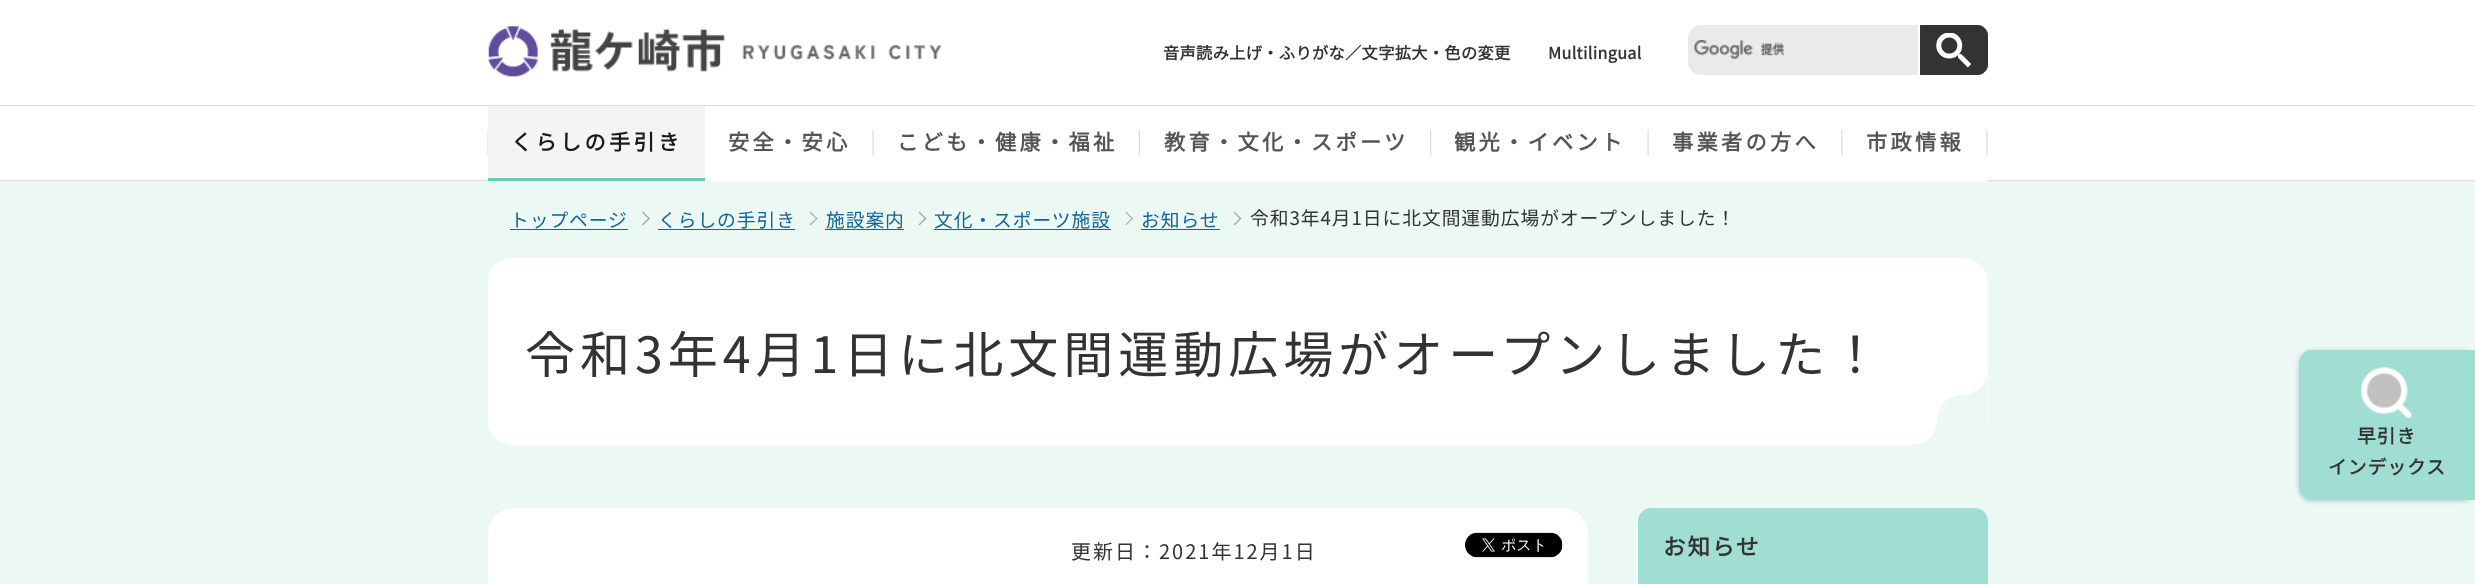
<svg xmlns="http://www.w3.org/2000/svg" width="2475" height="584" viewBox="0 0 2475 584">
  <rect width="100%" height="100%" fill="rgb(235,248,243)"/>
  <rect x="0" y="0" width="2475" height="180" fill="rgb(255,255,255)"/>
  <image x="487" y="26" width="455" height="51" href="pic1.png"/>
  <g font-family="Noto Sans JP" font-size="16.25" font-weight="bold" letter-spacing="0.3" fill="rgb(51,51,51)">
    <text x="1163" y="59">音声読み上げ・ふりがな／文字拡大・色の変更</text>
    <text x="1548" y="59">Multilingual</text>
  </g>
  <path d="M1701 25H1918V75H1701C1694 75 1688 69 1688 62V38C1688 31 1694 25 1701 25Z" fill="rgb(234,234,234)"/>
  <image x="1693" y="40" width="92" height="19" href="pic2.png"/>
  <path d="M1920.5 25.5H1978C1983 25.5 1987.5 30 1987.5 35V65C1987.5 70 1983 74.5 1978 74.5H1920.5Z" fill="rgb(51,51,51)" stroke="rgb(51,51,51)"/>
  <image x="1936" y="33" width="35" height="35" href="pic3.png"/>
  <rect x="2299" y="351" width="176" height="150" rx="13" fill="rgba(0,0,0,0.2)" filter="blur(2.5px)"/>
  <path d="M2312 350H2475V500H2312C2305 500 2299 494 2299 487V363C2299 356 2305 350 2312 350Z" fill="rgb(160,222,211)"/>
  <image x="2361" y="367" width="51" height="51" href="pic4.png"/>
  <g font-family="Noto Sans JP" font-size="18.75" font-weight="bold" letter-spacing="1" fill="rgb(51,51,51)">
    <text x="2357" y="443">早引き</text>
    <text x="2328" y="474">インデックス</text>
  </g>
  <rect x="0" y="105" width="2475" height="1" fill="rgb(221,221,221)"/>
  <rect x="0" y="180" width="2475" height="1" fill="rgb(221,221,221)"/>
  <image x="487" y="130" width="1" height="25" href="pic5.png"/>
  <rect x="488" y="106" width="217" height="72" fill="rgb(244,244,244)"/>
  <rect x="488" y="178" width="217" height="3" fill="rgb(103,206,187)"/>
  <text x="511" y="150" font-family="Noto Sans JP" font-size="21.25" font-weight="bold" letter-spacing="3.25" fill="rgb(26,26,26)">くらしの手引き</text>
  <image x="872" y="130" width="2" height="25" href="pic6.png"/>
  <rect x="705" y="180" width="1283" height="1" fill="rgb(255,255,255)"/>
  <text x="728" y="150" font-family="Noto Sans JP" font-size="21.25" font-weight="bold" letter-spacing="3.25" fill="rgb(85,85,85)">安全・安心</text>
  <image x="1138" y="130" width="2" height="25" href="pic7.png"/>
  <text x="897" y="150" font-family="Noto Sans JP" font-size="21.25" font-weight="bold" letter-spacing="3.25" fill="rgb(85,85,85)">こども・健康・福祉</text>
  <image x="1430" y="130" width="2" height="25" href="pic8.png"/>
  <text x="1164" y="150" font-family="Noto Sans JP" font-size="21.25" font-weight="bold" letter-spacing="3.25" fill="rgb(85,85,85)">教育・文化・スポーツ</text>
  <image x="1647" y="130" width="2" height="25" href="pic6.png"/>
  <text x="1454" y="150" font-family="Noto Sans JP" font-size="21.25" font-weight="bold" letter-spacing="3.25" fill="rgb(85,85,85)">観光・イベント</text>
  <image x="1841" y="130" width="2" height="25" href="pic9.png"/>
  <text x="1672" y="150" font-family="Noto Sans JP" font-size="21.25" font-weight="bold" letter-spacing="3.25" fill="rgb(85,85,85)">事業者の方へ</text>
  <image x="1986" y="130" width="2" height="25" href="pic9.png"/>
  <text x="1866" y="150" font-family="Noto Sans JP" font-size="21.25" font-weight="bold" letter-spacing="3.25" fill="rgb(85,85,85)">市政情報</text>
  <text x="510" y="227" font-family="Noto Sans JP" font-size="18.75" font-weight="100" letter-spacing="0.95" fill="rgb(17,100,159)">トップページ</text>
  <rect x="510" y="229" width="118" height="1" fill="rgb(17,100,159)"/>
  <path d="M643 211.5L650 218.5L649 219.5L642 212.5Z" fill="rgb(170,170,170)"/>
  <path d="M649 217.5L650 218.5L643 225.5L642 224.5Z" fill="rgb(170,170,170)"/>
  <text x="658" y="227" font-family="Noto Sans JP" font-size="18.75" font-weight="100" letter-spacing="0.95" fill="rgb(17,100,159)">くらしの手引き</text>
  <rect x="658" y="229" width="137" height="1" fill="rgb(17,100,159)"/>
  <path d="M810.5 211.5L817.5 218.5L817 219.5L809.5 212.5Z" fill="rgb(170,170,170)"/>
  <path d="M817 217.5L817.5 218.5L810.5 225.5L809.5 224.5Z" fill="rgb(170,170,170)"/>
  <text x="826" y="227" font-family="Noto Sans JP" font-size="18.75" font-weight="100" letter-spacing="0.95" fill="rgb(17,100,159)">施設案内</text>
  <rect x="825" y="229" width="79" height="1" fill="rgb(17,100,159)"/>
  <path d="M919.5 211.5L926.5 218.5L925.5 219.5L918.5 212.5Z" fill="rgb(170,170,170)"/>
  <path d="M925.5 217.5L926.5 218.5L919.5 225.5L918.5 224.5Z" fill="rgb(170,170,170)"/>
  <text x="934" y="227" font-family="Noto Sans JP" font-size="18.75" font-weight="100" letter-spacing="0.95" fill="rgb(17,100,159)">文化・スポーツ施設</text>
  <rect x="934" y="229" width="177" height="1" fill="rgb(17,100,159)"/>
  <path d="M1126 211.5L1133 218.5L1132.5 219.5L1125.5 212.5Z" fill="rgb(170,170,170)"/>
  <path d="M1132.5 217.5L1133 218.5L1126 225.5L1125.5 224.5Z" fill="rgb(170,170,170)"/>
  <text x="1141" y="227" font-family="Noto Sans JP" font-size="18.75" font-weight="100" letter-spacing="0.95" fill="rgb(17,100,159)">お知らせ</text>
  <rect x="1141" y="229" width="79" height="1" fill="rgb(17,100,159)"/>
  <path d="M1234.5 211.5L1241.5 218.5L1240.5 219.5L1233.5 212.5Z" fill="rgb(170,170,170)"/>
  <path d="M1240.5 217.5L1241.5 218.5L1234.5 225.5L1233.5 224.5Z" fill="rgb(170,170,170)"/>
  <text x="1250" y="225" font-family="Noto Sans JP" font-size="18.75" font-weight="100" letter-spacing="0.95" fill="rgb(51,51,51)">令和3年4月1日に北文間運動広場がオープンしました！</text>
  <rect x="488" y="258" width="1500" height="187" rx="25" fill="rgb(255,255,255)"/>
  <image x="1913" y="373" width="74" height="72" href="pic10.png"/>
  <text x="525" y="373" font-family="Noto Sans JP" font-size="50" font-weight="100" letter-spacing="5" fill="rgb(51,51,51)">令和3年4月1日に北文間運動広場がオープンしました！</text>
  <rect x="488" y="508" width="1100" height="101" rx="25" fill="rgb(255,255,255)"/>
  <text x="1071" y="559" font-family="Noto Sans JP" font-size="20" font-weight="100" letter-spacing="2" fill="rgb(51,51,51)">更新日：2021年12月1日</text>
  <image x="1465" y="532" width="98" height="26" href="pic11.png"/>
  <path d="M1651 508H1975C1982 508 1988 514 1988 521V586H1638V521C1638 514 1644 508 1651 508Z" fill="rgb(160,222,211)"/>
  <text x="1663" y="555" font-family="Noto Sans JP" font-size="22.5" font-weight="bold" letter-spacing="2" fill="rgb(51,51,51)">お知らせ</text>
</svg>
